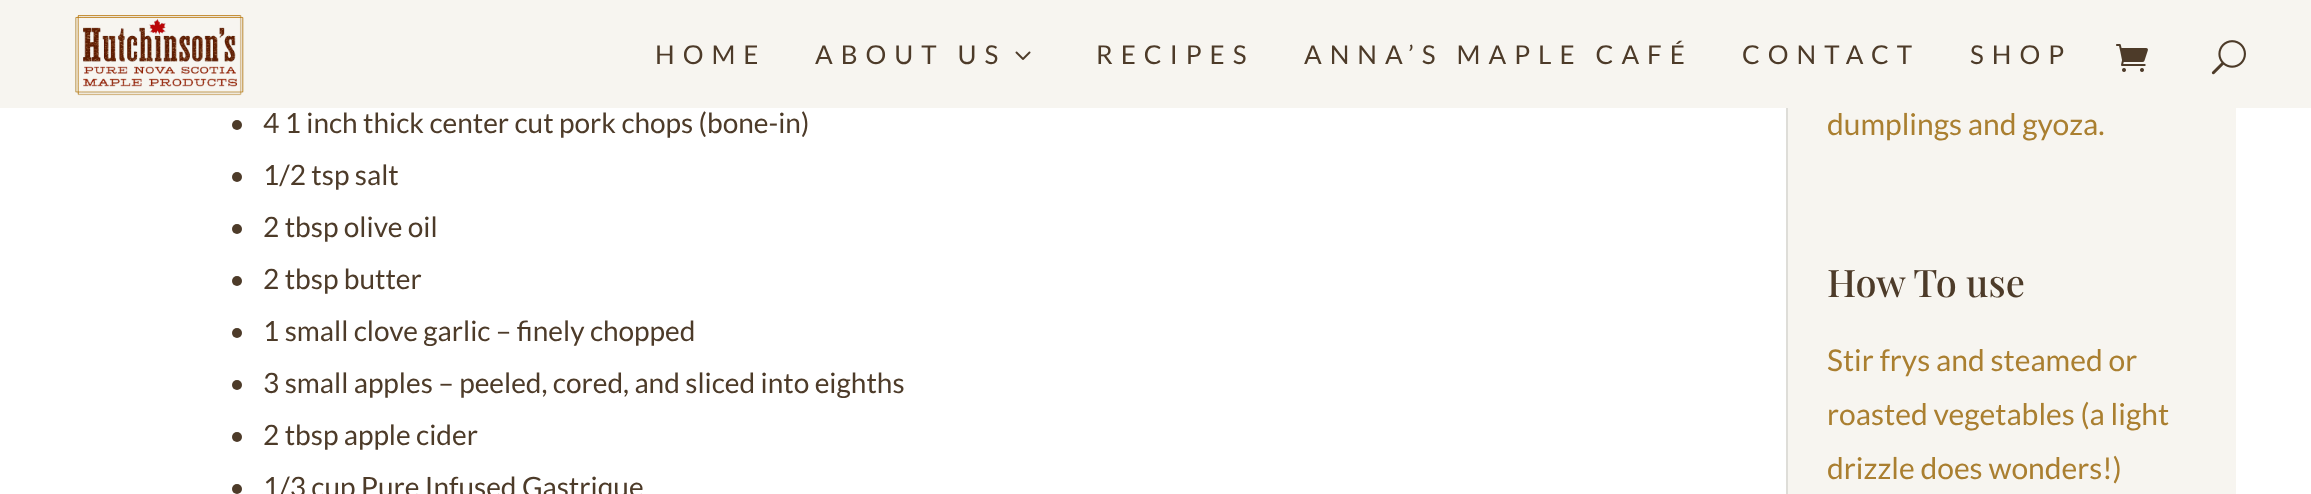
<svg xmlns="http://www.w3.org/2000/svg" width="2311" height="494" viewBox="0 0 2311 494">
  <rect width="100%" height="100%" fill="rgb(255,255,255)"/>
  <rect x="0" y="0" width="2311" height="108" fill="rgb(247,245,240)"/>
  <image x="75" y="15" width="169" height="81" href="pic1.png"/>
  <g font-family="Lato" font-size="26" letter-spacing="8" fill="rgb(77,59,41)">
    <text x="655" y="64">HOME</text>
    <text x="815" y="64">ABOUT US</text>
  </g>
  <image x="1015" y="51" width="16" height="9" href="pic2.png"/>
  <g font-family="Lato" font-size="26" letter-spacing="8" fill="rgb(77,59,41)">
    <text x="1096" y="64">RECIPES</text>
    <text x="1304" y="64">ANNA’S MAPLE CAFÉ</text>
    <text x="1742" y="64">CONTACT</text>
    <text x="1970" y="64">SHOP</text>
  </g>
  <image x="2116" y="44" width="32" height="28" href="pic3.png"/>
  <image x="2211" y="40" width="35" height="35" href="pic4.png"/>
  <circle cx="237" cy="125" r="5" fill="rgb(77,59,41)"/>
  <text x="263" y="133" font-family="Lato" font-size="28" fill="rgb(77,59,41)">4 1 inch thick center cut pork chops (bone-in)</text>
  <circle cx="237" cy="177" r="5" fill="rgb(77,59,41)"/>
  <text x="263" y="185" font-family="Lato" font-size="28" fill="rgb(77,59,41)">1/2 tsp salt</text>
  <circle cx="237" cy="229" r="5" fill="rgb(77,59,41)"/>
  <text x="263" y="237" font-family="Lato" font-size="28" fill="rgb(77,59,41)">2 tbsp olive oil</text>
  <circle cx="237" cy="281" r="5" fill="rgb(77,59,41)"/>
  <text x="263" y="289" font-family="Lato" font-size="28" fill="rgb(77,59,41)">2 tbsp butter</text>
  <circle cx="237" cy="333" r="5" fill="rgb(77,59,41)"/>
  <text x="263" y="341" font-family="Lato" font-size="28" fill="rgb(77,59,41)">1 small clove garlic – finely chopped</text>
  <circle cx="237" cy="385" r="5" fill="rgb(77,59,41)"/>
  <text x="263" y="393" font-family="Lato" font-size="28" fill="rgb(77,59,41)">3 small apples – peeled, cored, and sliced into eighths</text>
  <circle cx="237" cy="437" r="5" fill="rgb(77,59,41)"/>
  <text x="263" y="445" font-family="Lato" font-size="28" fill="rgb(77,59,41)">2 tbsp apple cider</text>
  <circle cx="237" cy="489" r="5" fill="rgb(77,59,41)"/>
  <text x="263" y="497" font-family="Lato" font-size="28" fill="rgb(77,59,41)">1/3 cup Pure Infused Gastrique</text>
  <rect x="1788" y="108" width="448" height="386" fill="rgb(247,245,240)"/>
  <rect x="1786" y="108" width="2" height="386" fill="rgb(222,221,216)"/>
  <text x="1827" y="135" font-family="Lato" font-size="30" fill="rgb(170,127,48)">dumplings and gyoza.</text>
  <text x="1827" y="297" font-family="Playfair Display" font-size="38" font-weight="500" fill="rgb(77,59,41)">How To use</text>
  <g font-family="Lato" font-size="30" fill="rgb(170,127,48)">
    <text>
      <tspan x="1827" y="371">Stir frys and steamed or</tspan>
      <tspan x="1827" y="425">roasted vegetables (a light</tspan>
      <tspan x="1827" y="479">drizzle does wonders!)</tspan>
    </text>
  </g>
</svg>
